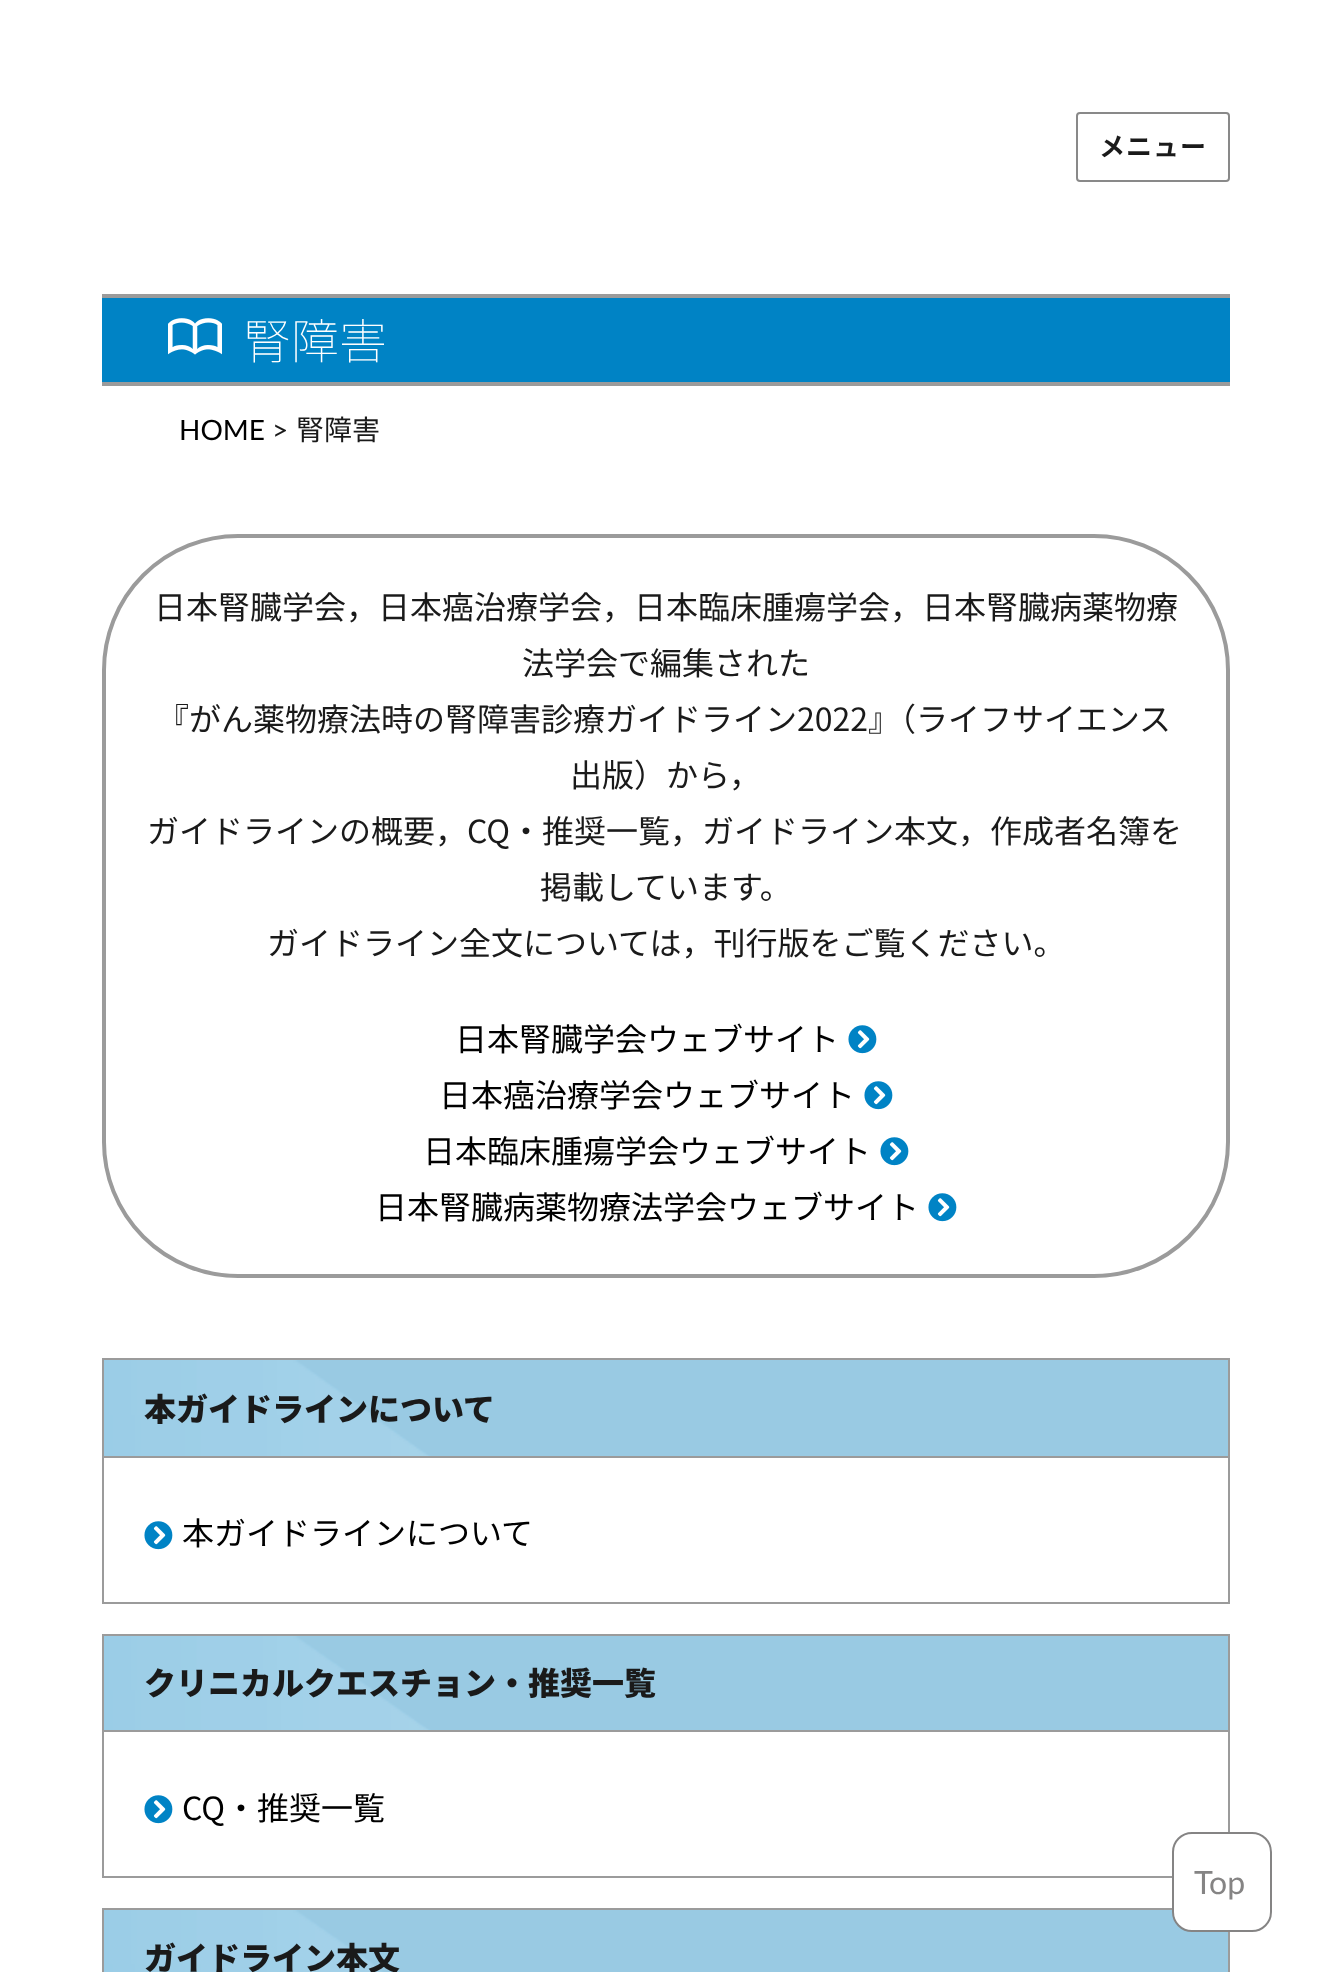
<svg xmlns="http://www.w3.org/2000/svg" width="1331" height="1972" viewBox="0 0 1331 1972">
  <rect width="100%" height="100%" fill="rgb(255,255,255)"/>
  <rect x="1077" y="113" width="152" height="68" rx="3" fill="none" stroke="rgb(137,137,137)" stroke-width="2"/>
  <text x="1099" y="156" font-family="Noto Sans JP" font-size="26" font-weight="bold" letter-spacing="1" fill="rgb(26,26,26)">メニュー</text>
  <rect x="102" y="298" width="1128" height="84" fill="rgb(0,131,197)"/>
  <rect x="102" y="294" width="1128" height="4" fill="rgb(155,155,155)"/>
  <rect x="102" y="382" width="1128" height="4" fill="rgb(155,155,155)"/>
  <image x="168" y="318" width="54" height="37" href="pic1.png"/>
  <text x="243" y="359" font-family="Noto Sans JP" font-size="48" font-weight="100" fill="rgb(255,255,255)">腎障害</text>
  <text x="179" y="440" font-family="Lato" font-size="28" fill="rgb(0,0,0)">HOME</text>
  <text x="272" y="440" font-family="Lato" font-size="28" fill="rgb(26,26,26)">&gt;</text>
  <text x="296" y="440" font-family="Noto Sans JP" font-size="28" fill="rgb(26,26,26)">腎障害</text>
  <rect x="104" y="536" width="1124" height="740" rx="134" fill="none" stroke="rgb(155,155,155)" stroke-width="4"/>
  <g font-family="Noto Sans JP" font-size="32" fill="rgb(26,26,26)">
    <text x="154" y="619">日本腎臓学会，日本癌治療学会，日本臨床腫瘍学会，日本腎臓病薬物療</text>
    <text x="522" y="675">法学会で編集された</text>
    <text x="157" y="731">『がん薬物療法時の腎障害診療ガイドライン2022』（ライフサイエンス</text>
    <text x="570" y="787">出版）から，</text>
    <text x="147" y="843">ガイドラインの概要，CQ・推奨一覧，ガイドライン本文，作成者名簿を</text>
    <text x="540" y="899">掲載しています。</text>
    <text x="267" y="955">ガイドライン全文については，刊行版をご覧ください。</text>
  </g>
  <text x="455" y="1051" font-family="Noto Sans JP" font-size="32" fill="rgb(0,0,0)">日本腎臓学会ウェブサイト</text>
  <image x="848" y="1025" width="29" height="29" href="pic2.png"/>
  <text x="439" y="1107" font-family="Noto Sans JP" font-size="32" fill="rgb(0,0,0)">日本癌治療学会ウェブサイト</text>
  <image x="864" y="1081" width="29" height="29" href="pic2.png"/>
  <text x="423" y="1163" font-family="Noto Sans JP" font-size="32" fill="rgb(0,0,0)">日本臨床腫瘍学会ウェブサイト</text>
  <image x="880" y="1137" width="29" height="29" href="pic2.png"/>
  <text x="375" y="1219" font-family="Noto Sans JP" font-size="32" fill="rgb(0,0,0)">日本腎臓病薬物療法学会ウェブサイト</text>
  <image x="928" y="1193" width="29" height="29" href="pic2.png"/>
  <rect x="103" y="1359" width="1126" height="244" fill="none" stroke="rgb(155,155,155)" stroke-width="2"/>
  <image x="104" y="1360" width="1124" height="96" href="pic3.png"/>
  <rect x="104" y="1456" width="1124" height="2" fill="rgb(155,155,155)"/>
  <text x="144" y="1421" font-family="Noto Sans JP" font-size="32" font-weight="900" fill="rgb(26,26,26)">本ガイドラインについて</text>
  <image x="144" y="1521" width="29" height="29" href="pic2.png"/>
  <text x="182" y="1545" font-family="Noto Sans JP" font-size="32" fill="rgb(0,0,0)">本ガイドラインについて</text>
  <rect x="103" y="1635" width="1126" height="242" fill="none" stroke="rgb(155,155,155)" stroke-width="2"/>
  <image x="104" y="1636" width="1124" height="94" href="pic4.png"/>
  <rect x="104" y="1730" width="1124" height="2" fill="rgb(155,155,155)"/>
  <text x="144" y="1695" font-family="Noto Sans JP" font-size="32" font-weight="900" fill="rgb(26,26,26)">クリニカルクエスチョン・推奨一覧</text>
  <image x="144" y="1795" width="29" height="29" href="pic2.png"/>
  <text x="182" y="1820" font-family="Noto Sans JP" font-size="32" fill="rgb(0,0,0)">CQ・推奨一覧</text>
  <rect x="103" y="1909" width="1126" height="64" fill="none" stroke="rgb(155,155,155)" stroke-width="2"/>
  <image x="104" y="1910" width="1124" height="62" href="pic5.png"/>
  <text x="144" y="1970" font-family="Noto Sans JP" font-size="32" font-weight="900" fill="rgb(26,26,26)">ガイドライン本文</text>
  <rect x="1173" y="1833" width="98" height="98" rx="19" fill="rgb(255,255,255)" stroke="rgb(133,132,132)" stroke-width="2"/>
  <text x="1194" y="1894" font-family="Lato" font-size="32" fill="rgb(133,132,132)">Top</text>
</svg>
